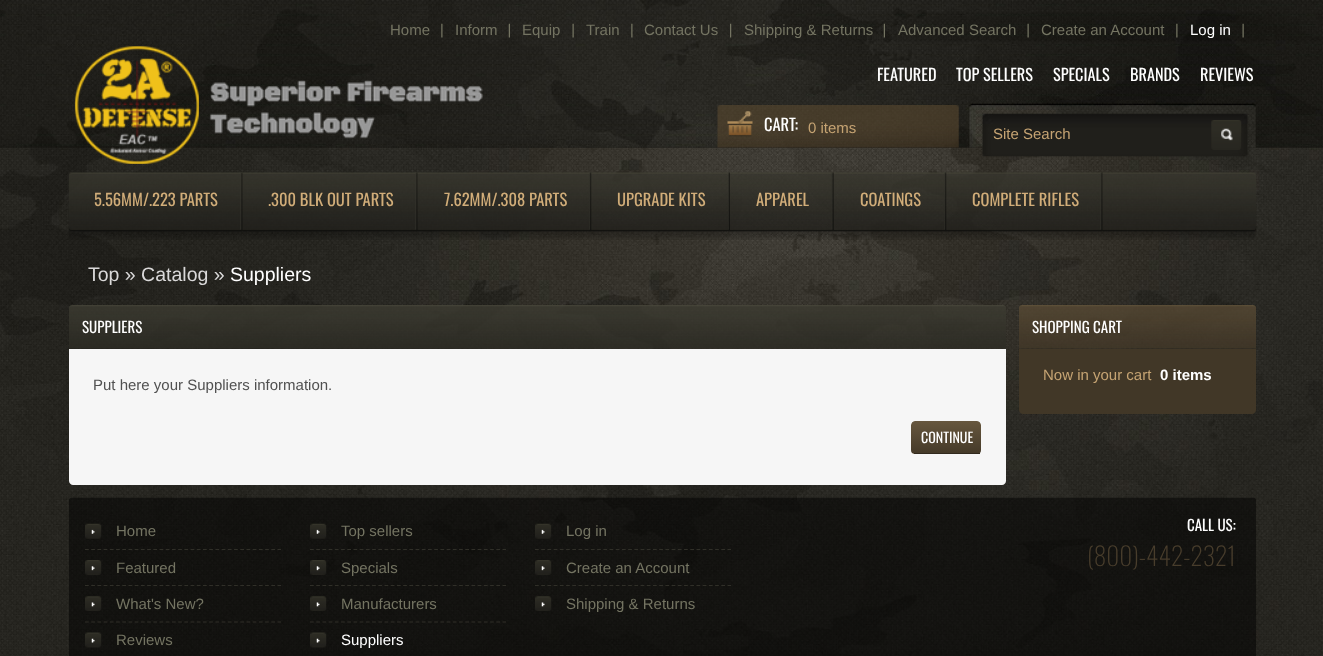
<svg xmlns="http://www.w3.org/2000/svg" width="1323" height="656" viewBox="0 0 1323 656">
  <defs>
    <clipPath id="clip1"><rect x="911" y="421" width="70" height="33" rx="4"/></clipPath>
    <linearGradient id="g1" gradientUnits="userSpaceOnUse" x1="946" y1="421" x2="946" y2="453"><stop offset="0" stop-color="rgb(103,87,62)"/><stop offset="1" stop-color="rgb(69,58,41)"/></linearGradient>
    <linearGradient id="g2" gradientUnits="userSpaceOnUse" x1="946" y1="453" x2="946" y2="484"><stop offset="0" stop-color="rgb(103,87,62)"/><stop offset="1" stop-color="rgb(69,58,41)"/></linearGradient>
  </defs>
  <rect width="100%" height="100%" fill="rgb(255,255,255)"/>
  <image x="0" y="147" width="1323" height="509" href="pic1.png"/>
  <image x="0" y="147" width="1323" height="1" href="pic2.png"/>
  <image x="0" y="0" width="1323" height="148" href="pic3.png"/>
  <image x="441" y="23" width="2" height="15" href="pic4.png"/>
  <text x="390" y="35" font-family="Liberation Sans" font-size="15" fill="rgb(116,116,98)">Home</text>
  <image x="508" y="23" width="2" height="15" href="pic5.png"/>
  <text x="455" y="35" font-family="Liberation Sans" font-size="15" fill="rgb(116,116,98)">Inform</text>
  <image x="572" y="23" width="2" height="15" href="pic6.png"/>
  <text x="522" y="35" font-family="Liberation Sans" font-size="15" fill="rgb(116,116,98)">Equip</text>
  <image x="631" y="23" width="2" height="15" href="pic7.png"/>
  <text x="586" y="35" font-family="Liberation Sans" font-size="15" fill="rgb(116,116,98)">Train</text>
  <image x="730" y="23" width="2" height="15" href="pic8.png"/>
  <text x="644" y="35" font-family="Liberation Sans" font-size="15" fill="rgb(116,116,98)">Contact Us</text>
  <image x="883" y="23" width="2" height="15" href="pic9.png"/>
  <text x="744" y="35" font-family="Liberation Sans" font-size="15" fill="rgb(116,116,98)">Shipping &amp; Returns</text>
  <image x="1027" y="23" width="2" height="15" href="pic10.png"/>
  <text x="898" y="35" font-family="Liberation Sans" font-size="15" fill="rgb(116,116,98)">Advanced Search</text>
  <image x="1176" y="23" width="2" height="15" href="pic11.png"/>
  <text x="1041" y="35" font-family="Liberation Sans" font-size="15" fill="rgb(116,116,98)">Create an Account</text>
  <image x="1242" y="23" width="2" height="15" href="pic12.png"/>
  <text x="1190" y="35" font-family="Liberation Sans" font-size="15" fill="rgb(255,255,255)">Log in</text>
  <image x="74" y="46" width="409" height="118" href="pic13.png"/>
  <g font-family="Oswald" font-size="16.25" fill="rgb(255,255,255)">
    <text x="877" y="81">FEATURED</text>
    <text x="956" y="81">TOP SELLERS</text>
    <text x="1053" y="81">SPECIALS</text>
    <text x="1130" y="81">BRANDS</text>
    <text x="1200" y="81">REVIEWS</text>
  </g>
  <image x="717" y="105" width="242" height="43" href="pic14.png"/>
  <text x="764" y="131" font-family="Oswald" font-size="16.5" fill="rgb(255,255,255)">CART:</text>
  <text x="808" y="133" font-family="Liberation Sans" font-size="15" fill="rgb(198,164,115)">0 items</text>
  <image x="982" y="113" width="266" height="44" href="pic15.png"/>
  <text x="993" y="139" font-family="Liberation Sans" font-size="15" fill="rgb(198,164,115)">Site Search</text>
  <image x="1211" y="120" width="31" height="30" href="pic16.png"/>
  <image x="68" y="172" width="1189" height="68" href="pic17.png"/>
  <image x="240" y="173" width="3" height="57" href="pic18.png"/>
  <text x="94" y="206" font-family="Oswald" font-size="16.5" fill="rgb(209,173,121)">5.56MM/.223 PARTS</text>
  <image x="415" y="172" width="3" height="58" href="pic19.png"/>
  <text x="268" y="206" font-family="Oswald" font-size="16.5" fill="rgb(209,173,121)">.300 BLK OUT PARTS</text>
  <image x="589" y="172" width="3" height="58" href="pic20.png"/>
  <text x="444" y="206" font-family="Oswald" font-size="16.5" fill="rgb(209,173,121)">7.62MM/.308 PARTS</text>
  <image x="728" y="172" width="2" height="58" href="pic21.png"/>
  <text x="617" y="206" font-family="Oswald" font-size="16.5" fill="rgb(209,173,121)">UPGRADE KITS</text>
  <image x="831" y="172" width="3" height="58" href="pic22.png"/>
  <text x="756" y="206" font-family="Oswald" font-size="16.5" fill="rgb(209,173,121)">APPAREL</text>
  <image x="944" y="172" width="3" height="58" href="pic23.png"/>
  <text x="860" y="206" font-family="Oswald" font-size="16.5" fill="rgb(209,173,121)">COATINGS</text>
  <image x="1100" y="172" width="3" height="58" href="pic24.png"/>
  <text x="972" y="206" font-family="Oswald" font-size="16.5" fill="rgb(209,173,121)">COMPLETE RIFLES</text>
  <text x="88" y="281" font-family="Liberation Sans" font-size="19.5" fill="rgb(218,217,217)">Top » Catalog »</text>
  <text x="230" y="281" font-family="Liberation Sans" font-size="19.5" fill="rgb(255,255,255)">Suppliers</text>
  <image x="69" y="305" width="937" height="44" href="pic25.png"/>
  <text x="82" y="333" font-family="Oswald" font-size="15" fill="rgb(255,255,255)">SUPPLIERS</text>
  <path d="M69 349H1006V481C1006 483 1004 485 1002 485H73C71 485 69 483 69 481Z" fill="rgb(246,246,246)"/>
  <text x="93" y="390" font-family="Liberation Sans" font-size="15" fill="rgb(80,80,80)">Put here your Suppliers information.</text>
  <g clip-path="url(#clip1)">
    <path d="M915 421H977C979 421 981 423 981 425V453H911V425C911 423 913 421 915 421Z" fill="url(#g1)"/>
    <rect x="911" y="453" width="3" height="1" fill="url(#g2)"/>
  </g>
  <rect x="914" y="453" width="66" height="1" fill="rgb(50,42,30)"/>
  <text x="921" y="443" font-family="Oswald" font-size="14" fill="rgb(255,255,255)">CONTINUE</text>
  <image x="1019" y="305" width="237" height="44" href="pic26.png"/>
  <text x="1032" y="333" font-family="Oswald" font-size="15" fill="rgb(255,255,255)">SHOPPING CART</text>
  <path d="M1019 349H1256V410C1256 412 1254 414 1252 414H1023C1021 414 1019 412 1019 410Z" fill="rgb(65,55,39)"/>
  <text x="1043" y="380" font-family="Liberation Sans" font-size="15" fill="rgb(198,164,115)">Now in your cart</text>
  <text x="1160" y="380" font-family="Liberation Sans" font-size="15" font-weight="bold" fill="rgb(255,255,255)">0 items</text>
  <image x="69" y="497" width="1187" height="159" href="pic27.png"/>
  <image x="85" y="523" width="17" height="16" href="pic28.png"/>
  <text x="116" y="536" font-family="Liberation Sans" font-size="15" fill="rgb(116,116,98)">Home</text>
  <image x="85" y="560" width="17" height="15" href="pic29.png"/>
  <path d="M85 549.5H281" fill="none" stroke="rgb(48,47,40)" stroke-width="1.2" stroke-dasharray="3.75 2.46"/>
  <text x="116" y="573" font-family="Liberation Sans" font-size="15" fill="rgb(116,116,98)">Featured</text>
  <image x="85" y="596" width="17" height="15" href="pic30.png"/>
  <path d="M85 585.5H281" fill="none" stroke="rgb(48,47,40)" stroke-width="1.2" stroke-dasharray="3.75 2.46"/>
  <text x="116" y="609" font-family="Liberation Sans" font-size="15" fill="rgb(116,116,98)">What's New?</text>
  <image x="85" y="632" width="17" height="16" href="pic31.png"/>
  <path d="M85 622H281" fill="none" stroke="rgb(48,47,40)" stroke-width="1.2" stroke-dasharray="3.75 2.46"/>
  <text x="116" y="645" font-family="Liberation Sans" font-size="15" fill="rgb(116,116,98)">Reviews</text>
  <image x="310" y="523" width="17" height="16" href="pic32.png"/>
  <text x="341" y="536" font-family="Liberation Sans" font-size="15" fill="rgb(116,116,98)">Top sellers</text>
  <image x="310" y="560" width="17" height="15" href="pic33.png"/>
  <path d="M310 549.5H506" fill="none" stroke="rgb(48,47,40)" stroke-width="1.2" stroke-dasharray="3.75 2.46"/>
  <text x="341" y="573" font-family="Liberation Sans" font-size="15" fill="rgb(116,116,98)">Specials</text>
  <image x="310" y="596" width="17" height="15" href="pic34.png"/>
  <path d="M310 585.5H506" fill="none" stroke="rgb(48,47,40)" stroke-width="1.2" stroke-dasharray="3.75 2.46"/>
  <text x="341" y="609" font-family="Liberation Sans" font-size="15" fill="rgb(116,116,98)">Manufacturers</text>
  <image x="310" y="632" width="17" height="16" href="pic35.png"/>
  <path d="M310 622H506" fill="none" stroke="rgb(48,47,40)" stroke-width="1.2" stroke-dasharray="3.75 2.46"/>
  <text x="341" y="645" font-family="Liberation Sans" font-size="15" fill="rgb(255,255,255)">Suppliers</text>
  <image x="535" y="523" width="17" height="16" href="pic36.png"/>
  <text x="566" y="536" font-family="Liberation Sans" font-size="15" fill="rgb(116,116,98)">Log in</text>
  <image x="535" y="560" width="17" height="15" href="pic37.png"/>
  <path d="M535 549.5H731" fill="none" stroke="rgb(48,47,40)" stroke-width="1.2" stroke-dasharray="3.75 2.46"/>
  <text x="566" y="573" font-family="Liberation Sans" font-size="15" fill="rgb(116,116,98)">Create an Account</text>
  <image x="535" y="596" width="17" height="15" href="pic38.png"/>
  <path d="M535 585.5H731" fill="none" stroke="rgb(48,47,40)" stroke-width="1.2" stroke-dasharray="3.75 2.46"/>
  <text x="566" y="609" font-family="Liberation Sans" font-size="15" fill="rgb(116,116,98)">Shipping &amp; Returns</text>
  <text x="1187" y="531" font-family="Oswald" font-size="15" fill="rgb(255,255,255)">CALL US:</text>
  <text x="1087" y="566" font-family="Oswald" font-size="25.25" font-weight="200" fill="rgb(72,61,44)">(800)-442-2321</text>
</svg>
